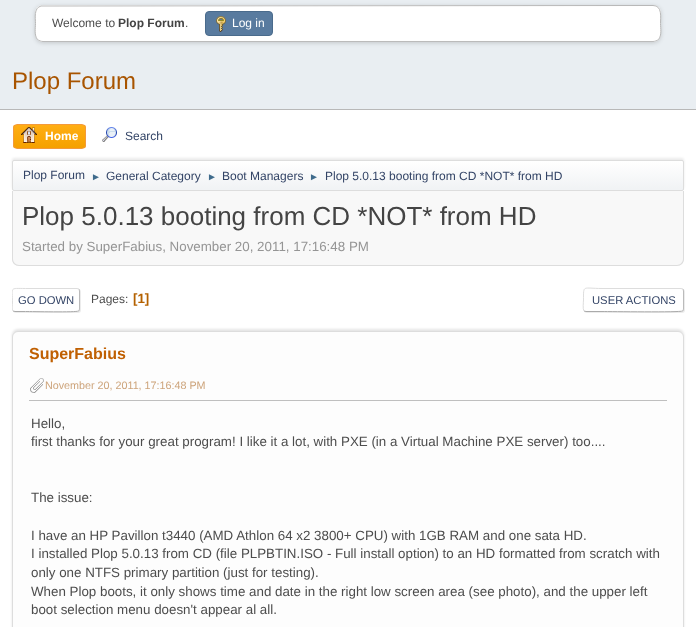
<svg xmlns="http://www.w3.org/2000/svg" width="696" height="627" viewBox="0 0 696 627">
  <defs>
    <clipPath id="clip1"><rect x="13" y="124" width="73" height="25" rx="4"/></clipPath>
    <linearGradient id="g1" gradientUnits="userSpaceOnUse" x1="50" y1="125" x2="50" y2="148"><stop offset="0" stop-color="rgb(255,174,20)"/><stop offset="1" stop-color="rgb(245,161,0)"/></linearGradient>
    <clipPath id="clip2"><rect x="12" y="160" width="672" height="31" rx="2"/></clipPath>
    <linearGradient id="g2" gradientUnits="userSpaceOnUse" x1="348" y1="161" x2="348" y2="190"><stop offset="0" stop-color="rgb(255,255,255)"/><stop offset="0.95" stop-color="rgb(241,243,245)"/></linearGradient>
    <clipPath id="clip3"><path d="M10 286H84V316H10ZM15 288H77C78.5 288 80 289.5 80 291V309C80 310.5 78.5 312 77 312H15C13.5 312 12 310.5 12 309V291C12 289.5 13.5 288 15 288Z" clip-rule="evenodd"/></clipPath>
    <clipPath id="clip4"><rect x="12" y="281" width="672" height="38"/></clipPath>
    <clipPath id="clip5"><path d="M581 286H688V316H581ZM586 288H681C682.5 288 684 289.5 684 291V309C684 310.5 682.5 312 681 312H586C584.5 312 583 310.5 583 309V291C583 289.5 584.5 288 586 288Z" clip-rule="evenodd"/></clipPath>
  </defs>
  <rect width="100%" height="100%" fill="rgb(233,238,242)"/>
  <rect x="35" y="6" width="626" height="37" rx="8" fill="rgba(0,0,0,0.16)" filter="blur(2px)"/>
  <rect x="35" y="5" width="626" height="37" rx="8" fill="rgb(255,255,255)"/>
  <path d="M658.5 39.5C657 40.5 655 41.5 653 41.5H43C41 41.5 39 40.5 37.5 39.5" fill="none" stroke="rgb(187,187,187)"/>
  <path d="M37.5 39.5C34 35.5 35.5 28 35.5 23.5C35.5 18 33.5 8 41 6L653 5.5C662.5 5.5 660.5 17.5 660.5 23.5C660.5 28 662 35.5 658.5 39.5" fill="none" stroke="rgb(184,184,184)"/>
  <text x="52" y="27" font-family="Liberation Sans" font-size="12" fill="rgb(77,77,77)">Welcome to</text>
  <text x="118" y="27" font-family="Liberation Sans" font-size="12" font-weight="bold" fill="rgb(68,68,68)">Plop Forum</text>
  <text x="185" y="27" font-family="Liberation Sans" font-size="12" fill="rgb(77,77,77)">.</text>
  <rect x="205.5" y="11.5" width="67" height="24" rx="3.5" fill="rgb(89,123,159)" stroke="rgb(74,107,140)"/>
  <image x="216" y="16" width="10" height="16" href="pic1.png"/>
  <text x="232" y="27" font-family="Liberation Sans" font-size="12" fill="rgb(255,255,255)">Log in</text>
  <text x="12" y="89" font-family="Liberation Sans" font-size="24" fill="rgb(168,84,0)">Plop Forum</text>
  <rect x="0" y="110" width="696" height="517" fill="rgb(255,255,255)"/>
  <rect x="0" y="109" width="696" height="1" fill="rgb(184,184,184)"/>
  <g clip-path="url(#clip1)">
    <rect x="13" y="125" width="73" height="23" fill="url(#g1)"/>
  </g>
  <rect x="13.5" y="124.5" width="72" height="24" rx="3.5" fill="none" stroke="rgb(244,154,58)"/>
  <image x="21" y="127" width="16" height="16" href="pic2.png"/>
  <text x="45" y="140" font-family="Liberation Sans" font-size="12" font-weight="bold" fill="rgb(255,255,255)">Home</text>
  <image x="102" y="127" width="15" height="15" href="pic3.png"/>
  <text x="125" y="140" font-family="Liberation Sans" font-size="12" fill="rgb(51,68,102)">Search</text>
  <rect x="12" y="158" width="672" height="31" rx="2" fill="rgba(0,0,0,0.08)" filter="blur(1px)"/>
  <g clip-path="url(#clip2)">
    <rect x="12" y="161" width="672" height="29" fill="url(#g2)"/>
  </g>
  <rect x="12.5" y="160.5" width="671" height="30" rx="1.5" fill="none" stroke="rgb(221,221,221)"/>
  <text x="23" y="179" font-family="Liberation Sans" font-size="12" fill="rgb(51,68,102)">Plop Forum</text>
  <text x="91" y="180" font-family="Liberation Sans" font-size="10" fill="rgb(63,107,140)">►</text>
  <text x="106" y="180" font-family="Liberation Sans" font-size="12" fill="rgb(51,68,102)">General Category</text>
  <text x="207" y="180" font-family="Liberation Sans" font-size="10" fill="rgb(63,107,140)">►</text>
  <text x="222" y="180" font-family="Liberation Sans" font-size="12" fill="rgb(51,68,102)">Boot Managers</text>
  <text x="309" y="180" font-family="Liberation Sans" font-size="10" fill="rgb(63,107,140)">►</text>
  <text x="325" y="180" font-family="Liberation Sans" font-size="12" fill="rgb(51,68,102)">Plop 5.0.13 booting from CD *NOT* from HD</text>
  <path d="M12 191H684V259C684 263 681 266 677 266H19C15 266 12 263 12 259Z" fill="rgb(248,248,248)"/>
  <path d="M12 191H684V259C684 263 681 266 677 266H19C15 266 12 263 12 259ZM13 191H683V259C683 262 680 265 677 265H19C16 265 13 262 13 259Z" fill="rgb(221,221,221)" fill-rule="evenodd"/>
  <text x="22" y="225" font-family="Liberation Sans" font-size="26" fill="rgb(68,68,68)">Plop 5.0.13 booting from CD *NOT* from HD</text>
  <text x="22" y="251" font-family="Liberation Sans" font-size="13.35" fill="rgb(149,149,149)">Started by SuperFabius, November 20, 2011, 17:16:48 PM</text>
  <g clip-path="url(#clip3)">
    <rect x="13" y="289" width="68" height="24" rx="3" fill="rgba(221,221,221,0.57)" filter="blur(0.5px)"/>
  </g>
  <path d="M79 289C79 289.5 79.5 290.5 79.5 291V309C79.5 309.5 79 310.5 79 311" fill="none" stroke="rgb(187,187,187)"/>
  <path d="M79 311H78.5C76.5 312.5 31.5 311.5 25.5 311.5H15L13 311" fill="none" stroke="rgb(170,170,170)"/>
  <g clip-path="url(#clip4)">
    <path d="M13 311C11.5 309 12.5 305 12.5 303C12.5 286.5 9 288.5 25.5 288.5H77L79 289" fill="none" stroke="rgb(221,221,221)"/>
  </g>
  <text x="18" y="304" font-family="Liberation Sans" font-size="11.25" fill="rgb(51,68,102)">GO DOWN</text>
  <text x="91" y="303" font-family="Liberation Sans" font-size="12" fill="rgb(77,77,77)">Pages:</text>
  <text x="133" y="303" font-family="Liberation Sans" font-size="13.35" font-weight="bold" fill="rgb(180,97,0)">[1]</text>
  <g clip-path="url(#clip5)">
    <rect x="584" y="289" width="101" height="24" rx="3" fill="rgba(221,221,221,0.57)" filter="blur(0.5px)"/>
  </g>
  <path d="M683 289C683 289.5 683.5 290.5 683.5 291V309C683.5 309.5 683 310.5 683 311" fill="none" stroke="rgb(187,187,187)"/>
  <path d="M683 311H682.5C680.5 312.5 610 311.5 602 311.5H586L584 311" fill="none" stroke="rgb(170,170,170)"/>
  <path d="M584 311C582.5 309 583.5 302 583.5 300C583.5 284.5 582.5 288.5 602 288.5H681L683 289" fill="none" stroke="rgb(221,221,221)"/>
  <text x="592" y="304" font-family="Liberation Sans" font-size="11.25" fill="rgb(51,68,102)">USER ACTIONS</text>
  <rect x="12" y="329" width="672" height="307" rx="6" fill="rgba(0,0,0,0.1)" filter="blur(1px)"/>
  <rect x="12.5" y="331.5" width="671" height="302" rx="5.5" fill="rgb(253,253,253)" stroke="rgb(221,221,221)"/>
  <text x="29" y="359" font-family="Liberation Sans" font-size="16" font-weight="bold" fill="rgb(192,96,2)">SuperFabius</text>
  <image x="30" y="378" width="14" height="15" href="pic4.png"/>
  <text x="45" y="389" font-family="Liberation Sans" font-size="10.75" fill="rgb(205,164,123)">November 20, 2011, 17:16:48 PM</text>
  <rect x="29" y="400" width="638" height="1" fill="rgb(191,191,191)"/>
  <g font-family="Liberation Sans" font-size="13.35" fill="rgb(77,77,77)">
    <text>
      <tspan x="31" y="428">Hello,</tspan>
      <tspan x="31" y="446">first thanks for your great program! I like it a lot, with PXE (in a Virtual Machine PXE server) too....</tspan>
    </text>
    <text x="31" y="502">The issue:</text>
    <text>
      <tspan x="31" y="540">I have an HP Pavillon t3440 (AMD Athlon 64 x2 3800+ CPU) with 1GB RAM and one sata HD.</tspan>
      <tspan x="31" y="558">I installed Plop 5.0.13 from CD (file PLPBTIN.ISO - Full install option) to an HD formatted from scratch with</tspan>
      <tspan x="31" y="577">only one NTFS primary partition (just for testing).</tspan>
      <tspan x="31" y="596">When Plop boots, it only shows time and date in the right low screen area (see photo), and the upper left</tspan>
      <tspan x="31" y="614">boot selection menu doesn't appear al all.</tspan>
    </text>
  </g>
</svg>
